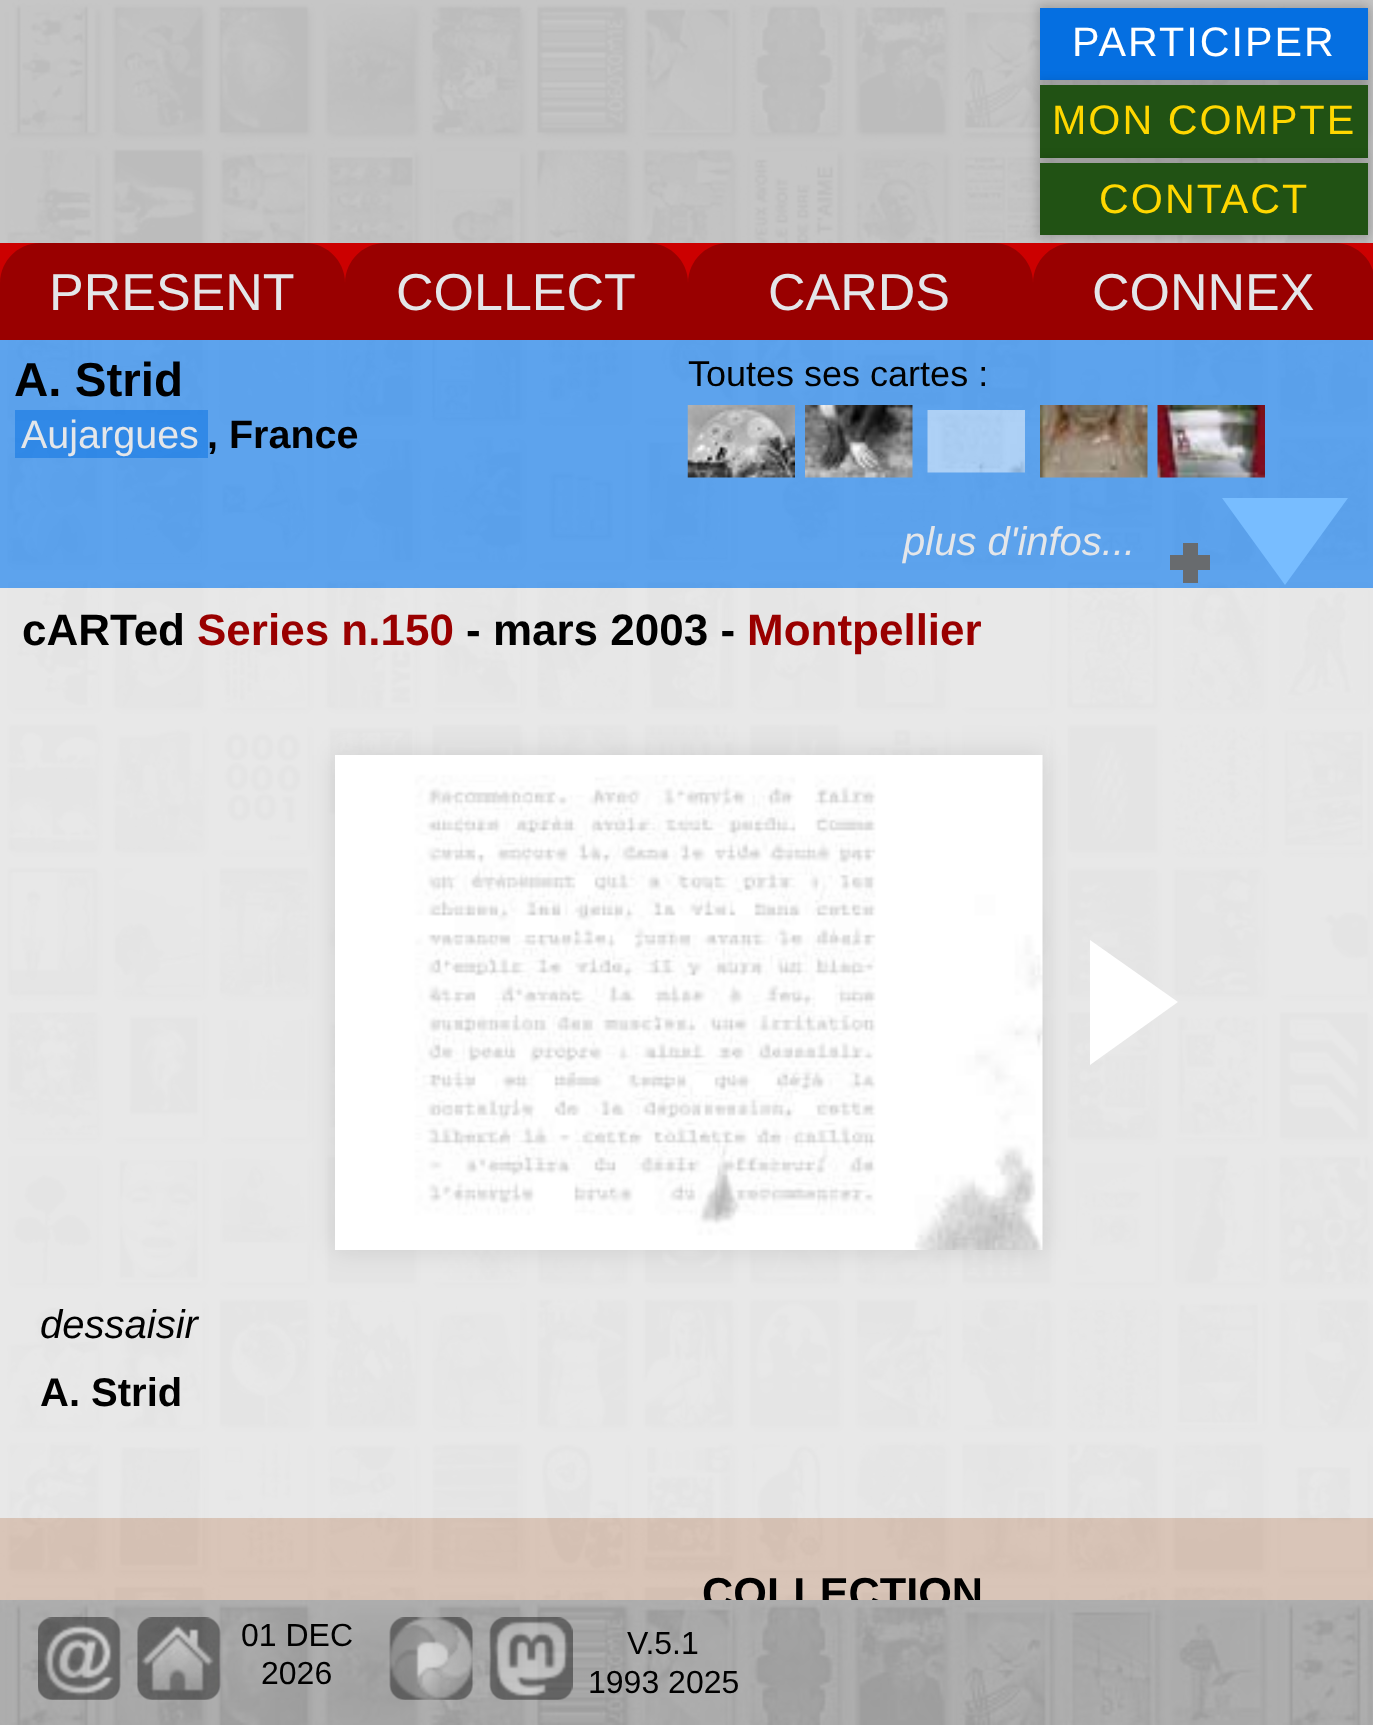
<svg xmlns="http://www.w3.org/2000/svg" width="1373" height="1725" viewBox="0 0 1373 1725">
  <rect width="100%" height="100%" fill="rgb(255,255,255)"/>
  <image x="0" y="0" width="1373" height="1600" href="pic1.png"/>
  <rect x="1038" y="5" width="332" height="78" fill="rgba(0,0,0,0.2)" filter="blur(6px)"/>
  <rect x="1040" y="8" width="328" height="72" fill="rgb(5,111,225)"/>
  <text x="1072" y="56" font-family="Liberation Sans" font-size="41.25" letter-spacing="2" fill="rgb(255,255,255)">PARTICIPER</text>
  <rect x="1038" y="83" width="332" height="77" fill="rgba(0,0,0,0.2)" filter="blur(6px)"/>
  <rect x="1040" y="85" width="328" height="73" fill="rgb(33,82,20)"/>
  <text x="1052" y="134" font-family="Liberation Sans" font-size="41.25" letter-spacing="2" fill="rgb(255,215,0)">MON COMPTE</text>
  <rect x="1038" y="160" width="332" height="78" fill="rgba(0,0,0,0.2)" filter="blur(6px)"/>
  <rect x="1040" y="163" width="328" height="72" fill="rgb(33,82,20)"/>
  <text x="1099" y="213" font-family="Liberation Sans" font-size="41.25" letter-spacing="2" fill="rgb(255,215,0)">CONTACT</text>
  <rect x="0" y="243" width="1373" height="40" fill="rgb(204,0,0)"/>
  <path d="M40 243H305C327 243 345 261 345 283V340H0V283C0 261 18 243 40 243Z" fill="rgb(153,0,0)"/>
  <text x="49" y="310" font-family="Liberation Sans" font-size="52" fill="rgb(228,230,233)">PRESENT</text>
  <path d="M385 243H648C670 243 688 261 688 283V340H345V283C345 261 363 243 385 243Z" fill="rgb(153,0,0)"/>
  <text x="396" y="310" font-family="Liberation Sans" font-size="52" fill="rgb(228,230,233)">COLLECT</text>
  <path d="M728 243H993C1015 243 1033 261 1033 283V340H688V283C688 261 706 243 728 243Z" fill="rgb(153,0,0)"/>
  <text x="768" y="310" font-family="Liberation Sans" font-size="52" fill="rgb(228,230,233)">CARDS</text>
  <path d="M1073 243H1335C1357 243 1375 261 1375 283V340H1033V283C1033 261 1051 243 1073 243Z" fill="rgb(153,0,0)"/>
  <text x="1092" y="310" font-family="Liberation Sans" font-size="52" fill="rgb(228,230,233)">CONNEX</text>
  <rect x="0" y="340" width="1373" height="248" fill="rgba(48,148,253,0.7)"/>
  <text x="14" y="396" font-family="Liberation Sans" font-size="47.5" font-weight="bold" fill="rgb(0,0,0)">A. Strid</text>
  <rect x="15" y="410" width="193" height="48" fill="rgba(5,111,225,0.5)"/>
  <text x="21" y="448" font-family="Liberation Sans" font-size="39.5" fill="rgb(228,230,233)">Aujargues</text>
  <text x="207" y="448" font-family="Liberation Sans" font-size="39.5" font-weight="bold" fill="rgb(0,0,0)">, France</text>
  <text x="688" y="386" font-family="Liberation Sans" font-size="36" fill="rgb(0,0,0)">Toutes ses cartes :</text>
  <image x="687" y="405" width="108" height="73" href="pic2.png"/>
  <image x="805" y="405" width="108" height="73" href="pic3.png"/>
  <image x="927" y="410" width="98" height="63" href="pic4.png"/>
  <image x="1040" y="405" width="108" height="73" href="pic5.png"/>
  <image x="1157" y="405" width="108" height="73" href="pic6.png"/>
  <text x="903" y="555" font-family="Liberation Sans" font-size="40" font-style="italic" fill="rgb(228,230,233)">plus d'infos...</text>
  <rect x="1183" y="543" width="15" height="40" fill="rgb(104,107,110)"/>
  <path d="M1222 498H1348L1285 585Z" fill="rgb(120,189,255)"/>
  <rect x="1170" y="555" width="40" height="15" fill="rgb(104,107,110)"/>
  <rect x="0" y="588" width="1373" height="930" fill="rgba(255,255,255,0.6)"/>
  <text x="22" y="645" font-family="Liberation Sans" font-size="44" font-weight="bold" fill="rgb(0,0,0)">cARTed</text>
  <text x="197" y="645" font-family="Liberation Sans" font-size="44" font-weight="bold" fill="rgb(153,0,0)">Series n.150</text>
  <text x="466" y="645" font-family="Liberation Sans" font-size="44" font-weight="bold" fill="rgb(0,0,0)">- mars 2003 -</text>
  <text x="747" y="645" font-family="Liberation Sans" font-size="44" font-weight="bold" fill="rgb(153,0,0)">Montpellier</text>
  <rect x="335" y="755" width="708" height="495" fill="rgba(0,0,0,0.1)" filter="blur(12.5px)"/>
  <image x="335" y="755" width="708" height="495" href="pic7.png"/>
  <path d="M1090 1065V940L1178 1002Z" fill="rgb(255,255,255)"/>
  <text x="40" y="1338" font-family="Liberation Sans" font-size="40" font-style="italic" fill="rgb(0,0,0)">dessaisir</text>
  <text x="40" y="1406" font-family="Liberation Sans" font-size="40" font-weight="bold" fill="rgb(0,0,0)">A. Strid</text>
  <rect x="0" y="1518" width="1373" height="82" fill="rgba(235,196,170,0.5)"/>
  <text x="702" y="1608" font-family="Liberation Sans" font-size="43.25" font-weight="bold" fill="rgb(0,0,0)">COLLECTION</text>
  <image x="0" y="1600" width="1373" height="125" href="pic8.png"/>
  <image x="38" y="1617" width="83" height="83" href="pic9.png"/>
  <image x="137" y="1617" width="84" height="83" href="pic10.png"/>
  <g font-family="Liberation Sans" font-size="32" fill="rgb(0,0,0)">
    <text x="241" y="1646">01 DEC</text>
    <text x="261" y="1684">2026</text>
  </g>
  <image x="389" y="1617" width="84" height="83" href="pic11.png"/>
  <image x="489" y="1617" width="84" height="83" href="pic12.png"/>
  <g font-family="Liberation Sans" font-size="32" fill="rgb(0,0,0)">
    <text x="627" y="1654">V.5.1</text>
    <text x="588" y="1693">1993 2025</text>
  </g>
</svg>
